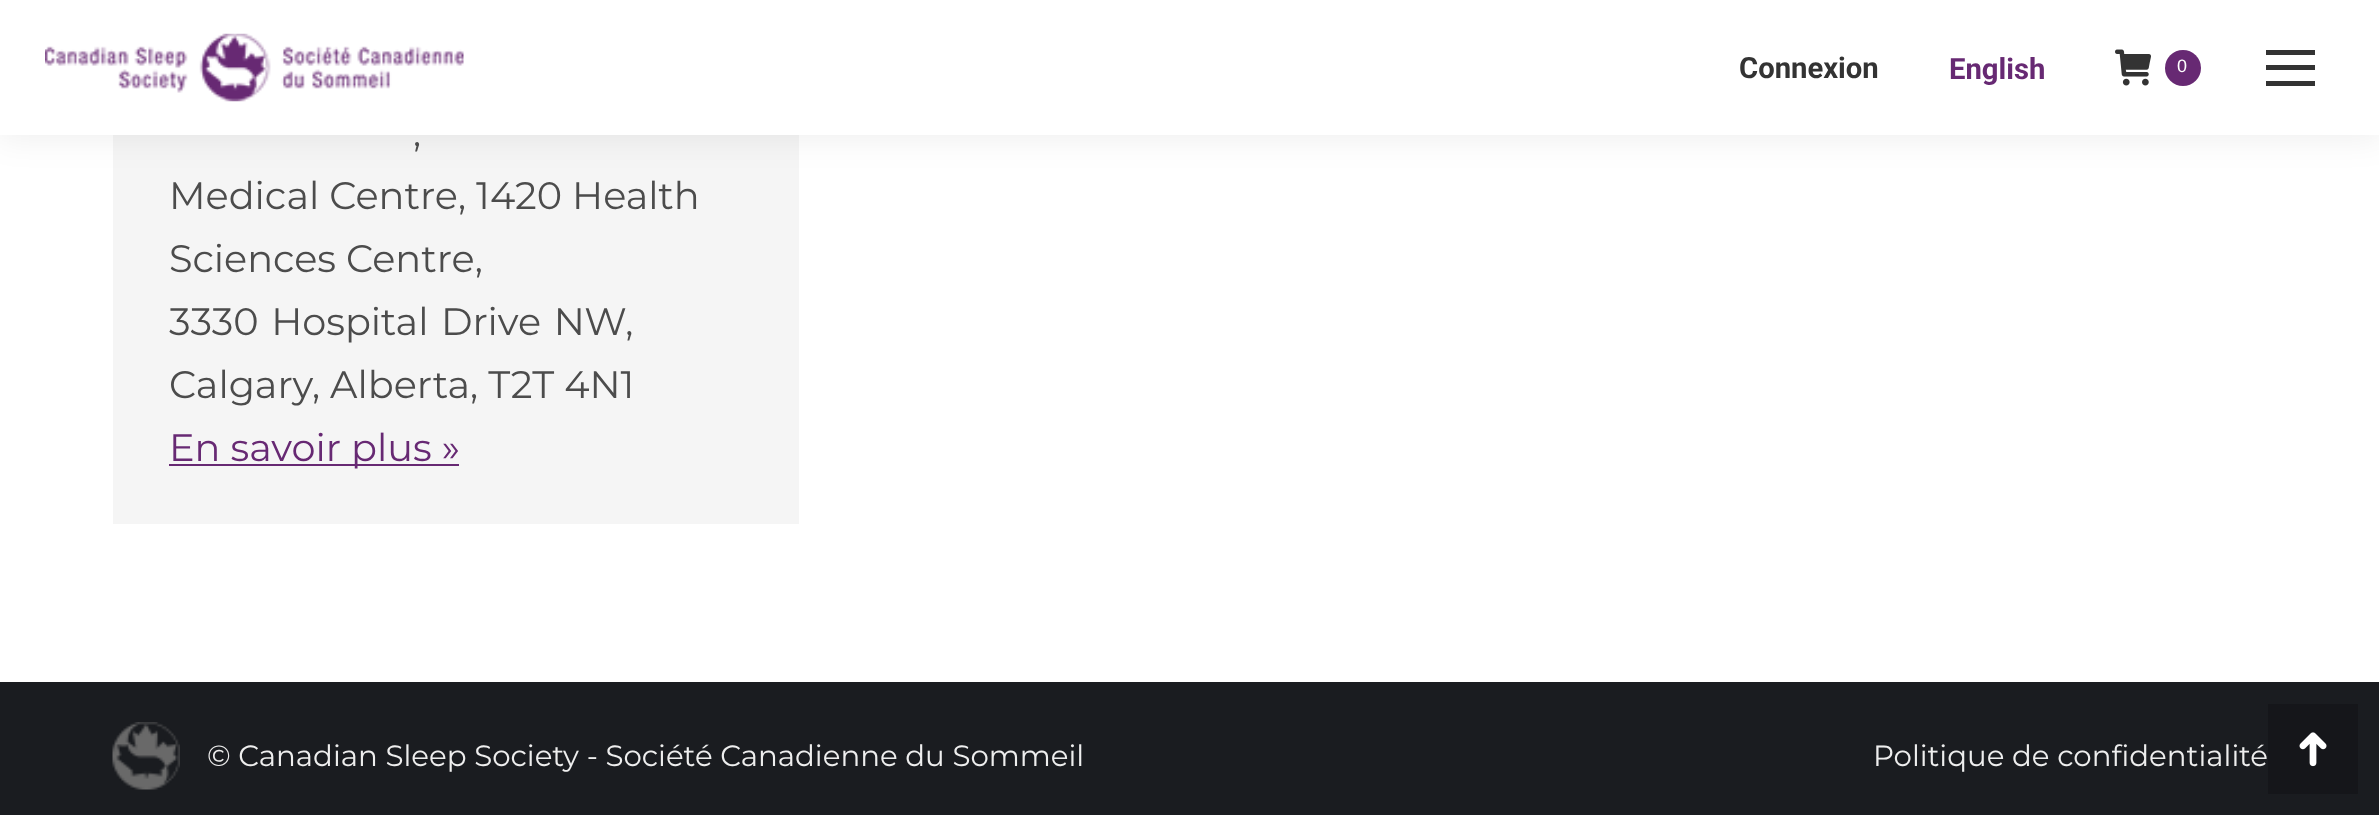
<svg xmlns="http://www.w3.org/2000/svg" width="2379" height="815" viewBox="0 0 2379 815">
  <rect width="100%" height="100%" fill="rgb(255,255,255)"/>
  <rect x="113" y="135" width="686" height="389" fill="rgb(245,245,245)"/>
  <rect x="-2" y="-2" width="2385" height="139" fill="rgba(0,0,0,0.07)" filter="blur(17px)"/>
  <rect x="0" y="0" width="2379" height="135" fill="rgb(255,255,255)"/>
  <image x="45" y="33" width="419" height="69" href="pic1.png"/>
  <text x="1739" y="78" font-family="Roboto" font-size="29.25" font-weight="bold" fill="rgb(51,51,51)">Connexion</text>
  <text x="1949" y="79" font-family="Roboto" font-size="29.25" font-weight="bold" fill="rgb(103,41,115)">English</text>
  <image x="2115" y="49" width="36" height="37" href="pic2.png"/>
  <circle cx="2183" cy="68" r="18" fill="rgb(103,41,115)"/>
  <text x="2177" y="72" font-family="Liberation Sans" font-size="18" fill="rgb(255,255,255)">0</text>
  <rect x="2266" y="50" width="49" height="5" fill="rgb(51,51,51)"/>
  <rect x="2266" y="65" width="49" height="5" fill="rgb(51,51,51)"/>
  <rect x="2266" y="81" width="49" height="5" fill="rgb(51,51,51)"/>
  <g font-family="Montserrat" font-size="38.25" fill="rgb(76,76,76)">
    <text x="413" y="146">,</text>
    <text>
      <tspan x="169" y="209">Medical Centre, 1420 Health</tspan>
      <tspan x="169" y="272">Sciences Centre,</tspan>
      <tspan x="169" y="335" word-spacing="2.5">3330 Hospital Drive NW,</tspan>
      <tspan x="169" y="398">Calgary, Alberta, T2T 4N1</tspan>
    </text>
  </g>
  <rect x="169" y="464" width="290" height="2" fill="rgb(103,41,115)"/>
  <text x="169" y="461" font-family="Montserrat" font-size="38.25" fill="rgb(103,41,115)">En savoir plus »</text>
  <rect x="0" y="682" width="2379" height="133" fill="rgb(26,28,32)"/>
  <image x="112" y="722" width="68" height="68" href="pic3.png"/>
  <g font-family="Montserrat" font-size="29.25" fill="rgb(238,238,238)">
    <text x="207" y="766">© Canadian Sleep Society - Société Canadienne du Sommeil</text>
    <text x="1873" y="766">Politique de confidentialité</text>
  </g>
  <rect x="2268" y="704" width="90" height="90" fill="rgb(21,22,26)"/>
  <image x="2299" y="732" width="28" height="35" href="pic4.png"/>
</svg>
